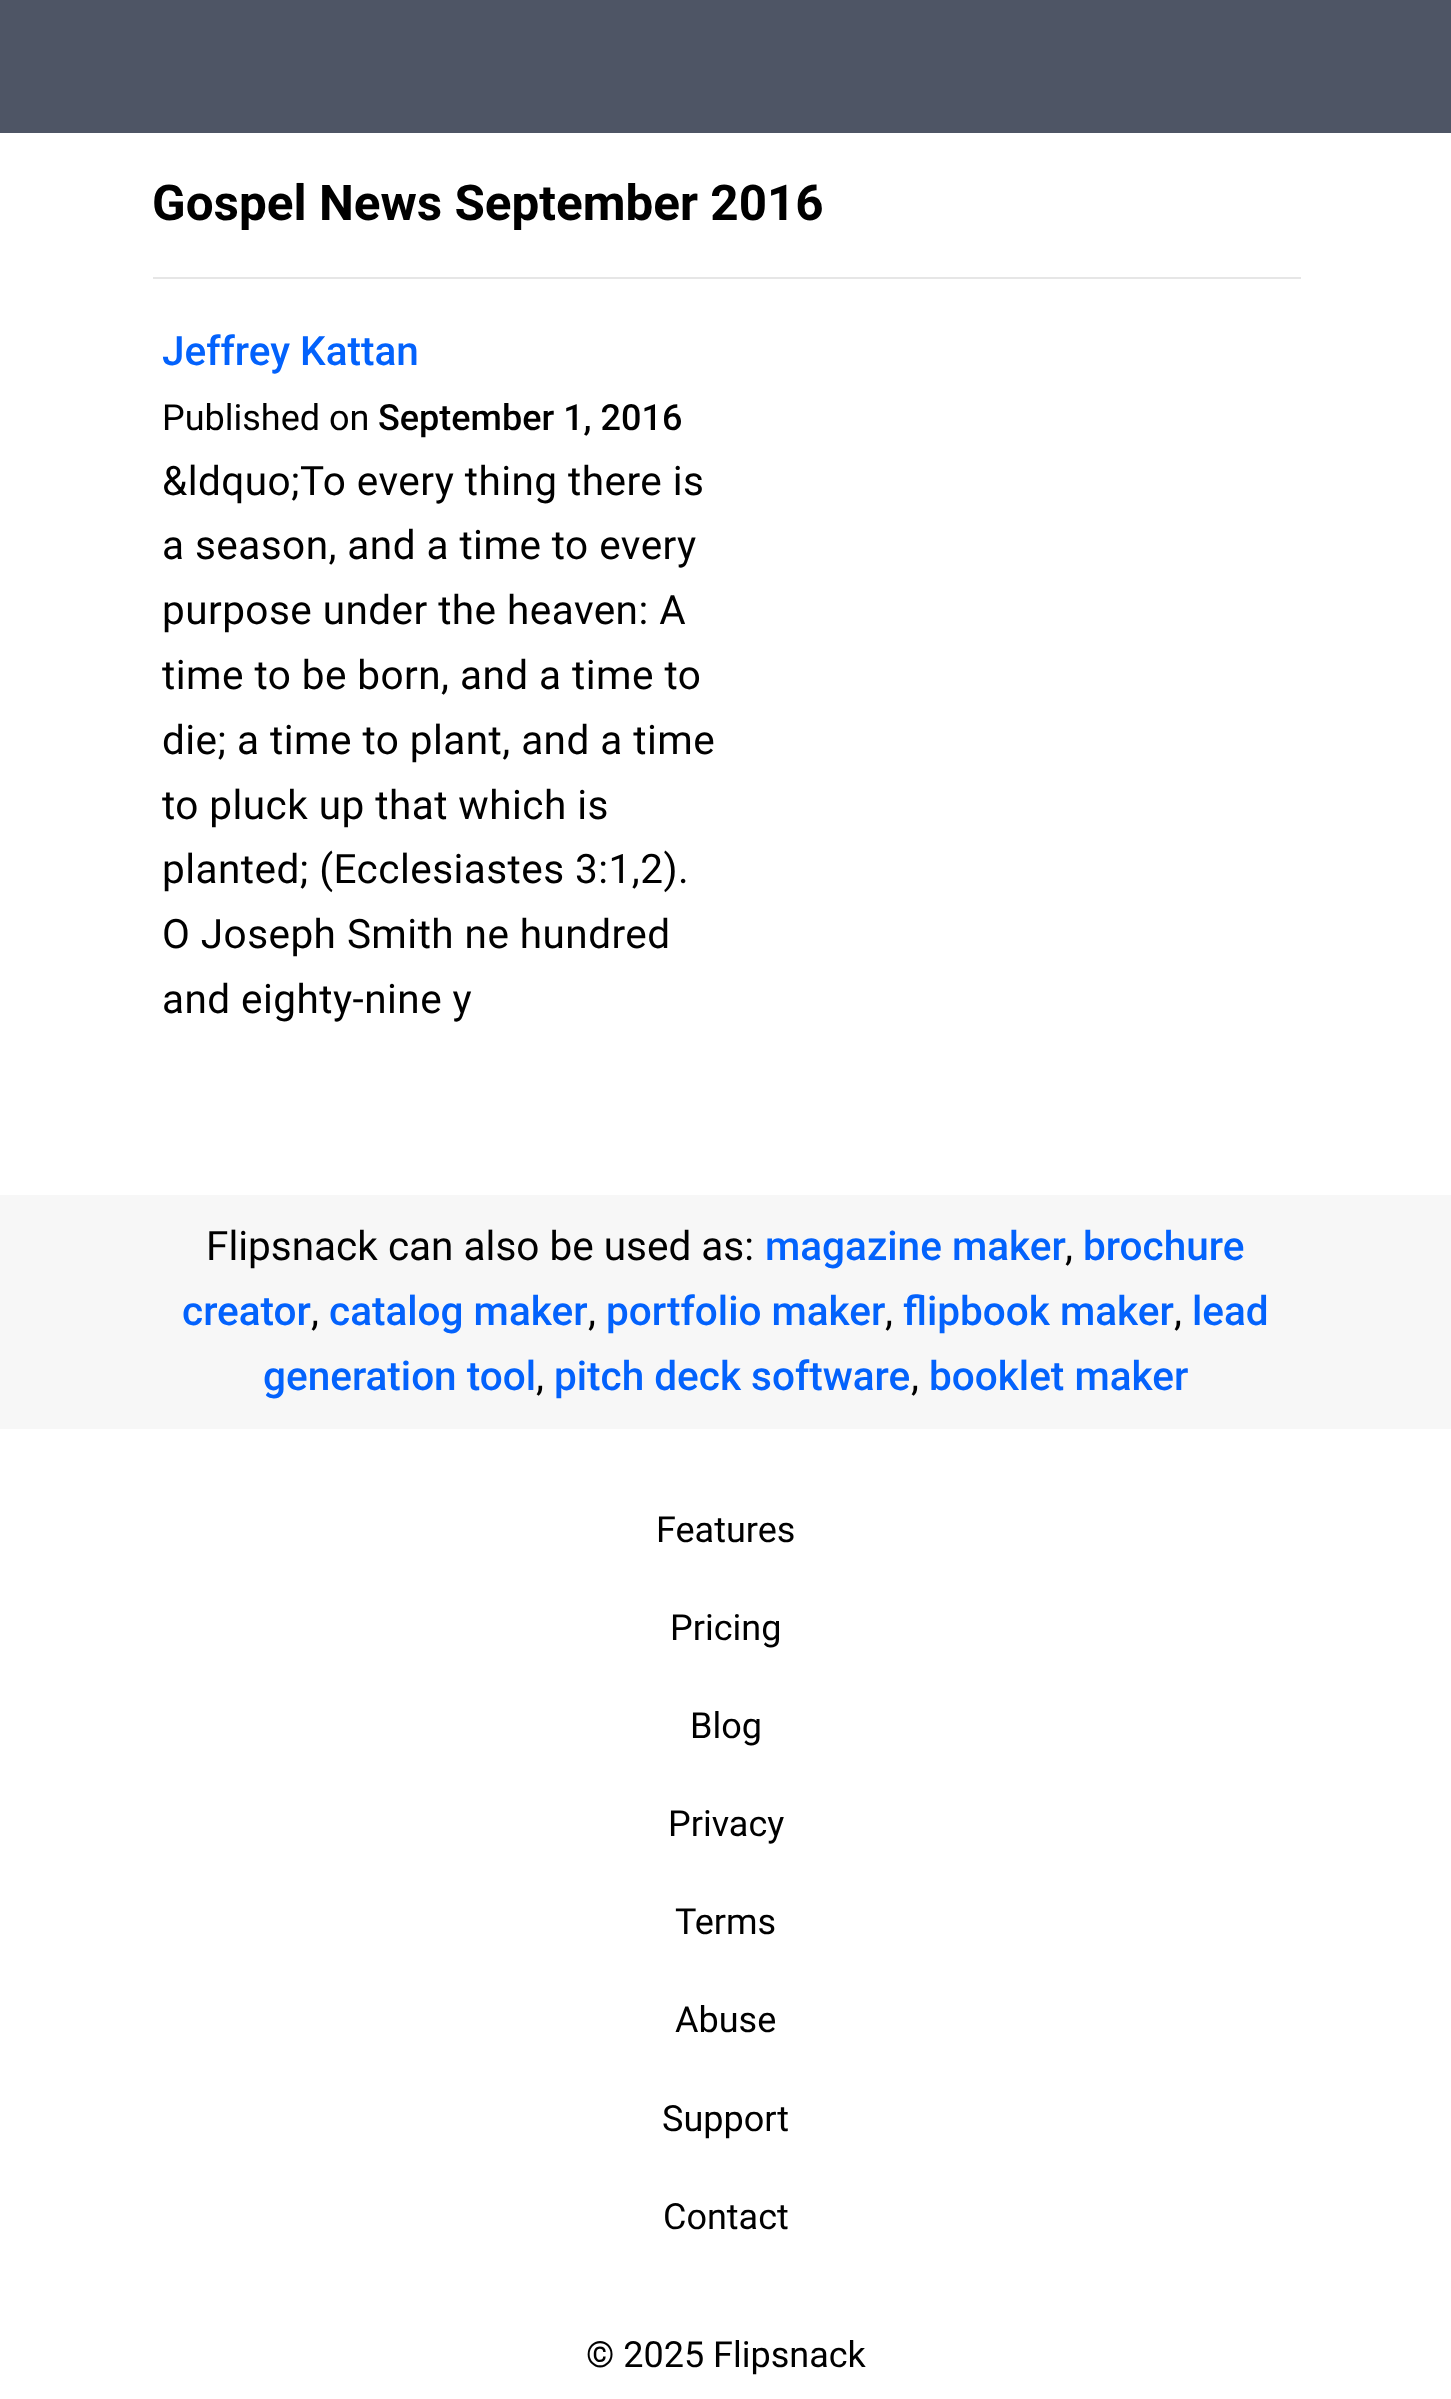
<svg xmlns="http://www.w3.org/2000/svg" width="1451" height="2399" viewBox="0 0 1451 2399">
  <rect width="100%" height="100%" fill="rgb(255,255,255)"/>
  <rect x="0" y="0" width="1451" height="133" fill="rgb(78,85,101)"/>
  <text x="152" y="220" font-family="Roboto" font-size="49.4" font-weight="bold" fill="rgb(0,0,0)">Gospel News September 2016</text>
  <rect x="153" y="277" width="1148" height="2" fill="rgb(230,230,230)"/>
  <text x="162" y="365" font-family="Roboto" font-size="40.5" font-weight="500" fill="rgb(3,98,252)">Jeffrey Kattan</text>
  <text x="162" y="430" font-family="Roboto" font-size="36" fill="rgb(0,0,0)">Published on</text>
  <text x="378" y="430" font-family="Roboto" font-size="36" font-weight="500" fill="rgb(0,0,0)">September 1, 2016</text>
  <g font-family="Roboto" font-size="40.5" letter-spacing="0.45" fill="rgb(0,0,0)">
    <text>
      <tspan x="162" y="495">&amp;ldquo;To every thing there is</tspan>
      <tspan x="162" y="559">a season, and a time to every</tspan>
      <tspan x="162" y="624">purpose under the heaven: A</tspan>
      <tspan x="162" y="689">time to be born, and a time to</tspan>
      <tspan x="162" y="754">die; a time to plant, and a time</tspan>
      <tspan x="162" y="819">to pluck up that which is</tspan>
      <tspan x="162" y="883">planted; (Ecclesiastes 3:1,2).</tspan>
      <tspan x="162" y="948">O Joseph Smith ne hundred</tspan>
      <tspan x="162" y="1013">and eighty-nine y</tspan>
    </text>
  </g>
  <rect x="0" y="1195" width="1451" height="234" fill="rgb(247,247,247)"/>
  <text x="206" y="1260" font-family="Roboto" font-size="40.5" fill="rgb(0,0,0)">Flipsnack can also be used as:</text>
  <text x="765" y="1260" font-family="Roboto" font-size="40.5" font-weight="500" fill="rgb(3,98,252)">magazine maker</text>
  <text x="1065" y="1260" font-family="Roboto" font-size="40.5" fill="rgb(0,0,0)">,</text>
  <g font-family="Roboto" font-size="40.5" font-weight="500" fill="rgb(3,98,252)">
    <text x="1083" y="1260">brochure</text>
    <text x="182" y="1325">creator</text>
  </g>
  <text x="311" y="1325" font-family="Roboto" font-size="40.5" fill="rgb(0,0,0)">,</text>
  <text x="329" y="1325" font-family="Roboto" font-size="40.5" font-weight="500" fill="rgb(3,98,252)">catalog maker</text>
  <text x="588" y="1325" font-family="Roboto" font-size="40.5" fill="rgb(0,0,0)">,</text>
  <text x="606" y="1325" font-family="Roboto" font-size="40.5" font-weight="500" fill="rgb(3,98,252)">portfolio maker</text>
  <text x="885" y="1325" font-family="Roboto" font-size="40.5" fill="rgb(0,0,0)">,</text>
  <text x="903" y="1325" font-family="Roboto" font-size="40.5" font-weight="500" fill="rgb(3,98,252)">flipbook maker</text>
  <text x="1174" y="1325" font-family="Roboto" font-size="40.5" fill="rgb(0,0,0)">,</text>
  <g font-family="Roboto" font-size="40.5" font-weight="500" fill="rgb(3,98,252)">
    <text x="1192" y="1325">lead</text>
    <text x="263" y="1390">generation tool</text>
  </g>
  <text x="536" y="1390" font-family="Roboto" font-size="40.5" fill="rgb(0,0,0)">,</text>
  <text x="554" y="1390" font-family="Roboto" font-size="40.5" font-weight="500" fill="rgb(3,98,252)">pitch deck software</text>
  <text x="911" y="1390" font-family="Roboto" font-size="40.5" fill="rgb(0,0,0)">,</text>
  <text x="929" y="1390" font-family="Roboto" font-size="40.5" font-weight="500" fill="rgb(3,98,252)">booklet maker</text>
  <g font-family="Roboto" font-size="36" fill="rgb(0,0,0)">
    <text x="656" y="1542">Features</text>
    <text x="670" y="1640">Pricing</text>
    <text x="690" y="1738">Blog</text>
    <text x="668" y="1836">Privacy</text>
    <text x="675" y="1934">Terms</text>
    <text x="675" y="2032">Abuse</text>
    <text x="662" y="2131">Support</text>
    <text x="663" y="2229">Contact</text>
    <text x="586" y="2367">© 2025 Flipsnack</text>
  </g>
</svg>
